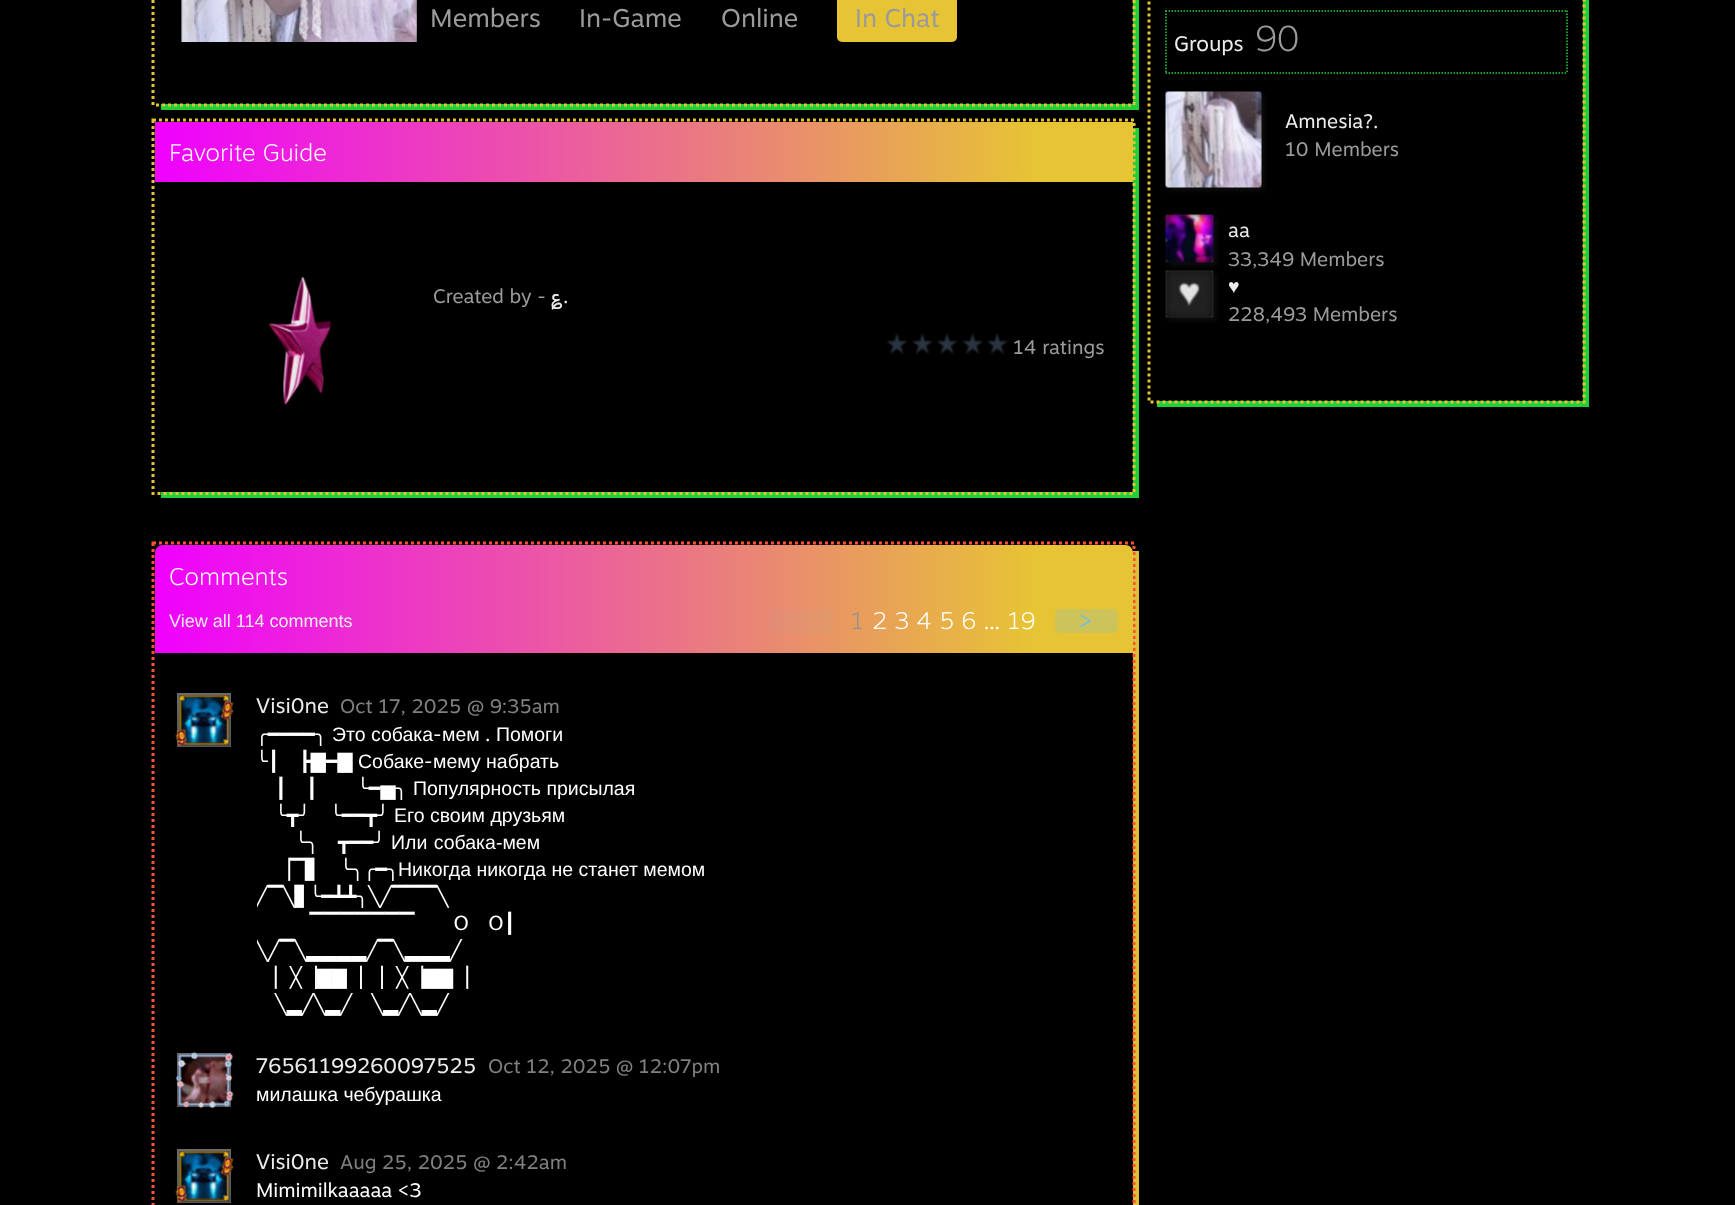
<svg xmlns="http://www.w3.org/2000/svg" width="1735" height="1205" viewBox="0 0 1735 1205">
  <defs>
    <linearGradient id="g1" gradientUnits="userSpaceOnUse" x1="155" y1="152" x2="1133" y2="151"><stop offset="0" stop-color="rgb(239,0,255)"/><stop offset="0.9" stop-color="rgb(231,196,52)"/></linearGradient>
    <linearGradient id="g2" gradientUnits="userSpaceOnUse" x1="155" y1="599" x2="1133" y2="599"><stop offset="0" stop-color="rgb(239,0,255)"/><stop offset="0.9" stop-color="rgb(231,196,52)"/></linearGradient>
    <linearGradient id="g3" gradientUnits="userSpaceOnUse" x1="204" y1="693" x2="204" y2="747"><stop offset="0.05" stop-color="rgb(106,106,106)"/><stop offset="0.95" stop-color="rgb(85,85,85)"/></linearGradient>
    <linearGradient id="g4" gradientUnits="userSpaceOnUse" x1="204" y1="695" x2="204" y2="746"><stop offset="0.05" stop-color="rgb(81,81,81)"/><stop offset="0.95" stop-color="rgb(71,71,71)"/></linearGradient>
    <clipPath id="clip1"><rect x="257" y="720" width="861" height="297"/></clipPath>
    <linearGradient id="g5" gradientUnits="userSpaceOnUse" x1="204" y1="1053" x2="204" y2="1107"><stop offset="0.05" stop-color="rgb(106,106,106)"/><stop offset="0.95" stop-color="rgb(85,85,85)"/></linearGradient>
    <linearGradient id="g6" gradientUnits="userSpaceOnUse" x1="204" y1="1055" x2="204" y2="1106"><stop offset="0.05" stop-color="rgb(81,81,81)"/><stop offset="0.95" stop-color="rgb(71,71,71)"/></linearGradient>
    <linearGradient id="g7" gradientUnits="userSpaceOnUse" x1="204" y1="1149" x2="204" y2="1203"><stop offset="0.05" stop-color="rgb(106,106,106)"/><stop offset="0.95" stop-color="rgb(85,85,85)"/></linearGradient>
    <linearGradient id="g8" gradientUnits="userSpaceOnUse" x1="204" y1="1151" x2="204" y2="1202"><stop offset="0.05" stop-color="rgb(81,81,81)"/><stop offset="0.95" stop-color="rgb(71,71,71)"/></linearGradient>
  </defs>
  <rect width="100%" height="100%" fill="rgb(0,0,0)"/>
  <path d="M161 104V110H1139V-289H1132V104Z" fill="rgb(32,208,56)"/>
  <rect x="1132" y="0" width="1" height="104" fill="rgb(0,0,0)"/>
  <path d="M153-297H1134V105H153Z" fill="none" stroke="rgb(230,195,51)" stroke-width="3" stroke-dasharray="3 3"/>
  <image x="181" y="0" width="236" height="42" href="pic1.png"/>
  <g font-family="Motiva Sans" font-size="25.5" fill="rgb(155,155,155)">
    <text x="430" y="27">Members</text>
    <text x="579" y="27">In-Game</text>
    <text x="721" y="27">Online</text>
  </g>
  <rect x="837" y="-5" width="120" height="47" rx="5" fill="rgb(231,196,52)"/>
  <text x="855" y="27" font-family="Motiva Sans" font-size="25.5" fill="rgb(155,155,155)">In Chat</text>
  <path d="M161 492V498H1139V128H1132V492Z" fill="rgb(32,208,56)"/>
  <rect x="1132" y="182" width="1" height="310" fill="rgb(0,0,0)"/>
  <path d="M153 120H1134V493.5H153Z" fill="none" stroke="rgb(230,195,51)" stroke-width="3" stroke-dasharray="3 3"/>
  <rect x="155" y="122" width="978" height="60" fill="url(#g1)"/>
  <text x="169" y="161" font-family="Motiva Sans" font-size="24" font-weight="100" fill="rgb(255,255,255)">Favorite Guide</text>
  <image x="268" y="276" width="64" height="129" href="pic2.png"/>
  <text x="433" y="303" font-family="Motiva Sans" font-size="19.5" fill="rgb(155,155,155)">Created by -</text>
  <text x="551" y="303" font-family="Cascadia Code" font-size="19.5" fill="rgb(235,235,235)">؏</text>
  <text x="563" y="303" font-family="Motiva Sans" font-size="19.5" fill="rgb(235,235,235)">.</text>
  <image x="886" y="333" width="122" height="22" href="pic3.png"/>
  <text x="1013" y="354" font-family="Motiva Sans" font-size="19.5" fill="rgb(155,155,155)">14 ratings</text>
  <path d="M161 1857V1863H1139V551H1132V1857Z" fill="rgb(222,191,58)"/>
  <rect x="1132" y="551" width="1" height="654" fill="rgb(0,0,0)"/>
  <path d="M153 543H1134V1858.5H153Z" fill="none" stroke="rgb(251,80,52)" stroke-width="3" stroke-dasharray="3 3"/>
  <path d="M163 545H1125C1129.5 545 1133 548.5 1133 553V653H155V553C155 548.5 158.5 545 163 545Z" fill="url(#g2)"/>
  <text x="169" y="585" font-family="Motiva Sans" font-size="24" font-weight="100" fill="rgb(255,255,255)">Comments</text>
  <text x="169" y="627" font-family="Liberation Sans" font-size="18" fill="rgb(235,235,235)">View all 114 comments</text>
  <rect x="770" y="609" width="63" height="24" fill="rgba(103,193,245,0.04)"/>
  <text x="851" y="629" font-family="Motiva Sans" font-size="24" font-weight="100" fill="rgb(147,147,147)">1</text>
  <text x="872" y="629" font-family="Motiva Sans" font-size="24" font-weight="100" fill="rgb(255,255,255)">2 3 4 5 6 ... 19</text>
  <rect x="1055" y="609" width="63" height="24" rx="5" fill="rgb(205,195,91)"/>
  <text x="1078" y="629" font-family="Motiva Sans" font-size="24" font-weight="100" fill="rgb(102,192,244)">&gt;</text>
  <rect x="177" y="693" width="54" height="54" fill="url(#g3)"/>
  <rect x="179" y="695" width="51" height="51" fill="url(#g4)"/>
  <image x="179" y="695" width="50" height="50" href="pic5.png"/>
  <image x="175" y="695" width="59" height="52" href="pic4.png"/>
  <text x="256" y="713" font-family="Motiva Sans" font-size="21" fill="rgb(235,235,235)">Visi0ne</text>
  <text x="340" y="713" font-family="Motiva Sans" font-size="19.5" fill="rgb(128,128,128)">Oct 17, 2025 @ 9:35am</text>
  <text x="256" y="741" font-family="DejaVu Sans" font-size="19.5" fill="rgb(255,255,255)">╭━━━━╮</text>
  <text x="332" y="741" font-family="Liberation Sans" font-size="19.5" fill="rgb(255,255,255)">Это собака</text>
  <text x="433" y="741" font-family="Motiva Sans" font-size="19.5" fill="rgb(255,255,255)">-</text>
  <g font-family="Liberation Sans" font-size="19.5" fill="rgb(255,255,255)">
    <text x="442" y="741">мем</text>
    <text x="496" y="741">Помоги</text>
  </g>
  <text x="485" y="741" font-family="Motiva Sans" font-size="19.5" fill="rgb(255,255,255)">.</text>
  <g font-family="DejaVu Sans" font-size="19.5" fill="rgb(255,255,255)">
    <text x="256" y="768">╰┃</text>
    <text x="299" y="768">┣▇━▇</text>
  </g>
  <text x="358" y="768" font-family="Liberation Sans" font-size="19.5" fill="rgb(255,255,255)">Собаке</text>
  <text x="424" y="768" font-family="Motiva Sans" font-size="19.5" fill="rgb(255,255,255)">-</text>
  <text x="433" y="768" font-family="Liberation Sans" font-size="19.5" fill="rgb(255,255,255)">мему набрать</text>
  <g font-family="DejaVu Sans" font-size="19.5" fill="rgb(255,255,255)">
    <text x="275" y="795">┃</text>
    <text x="306" y="795">┃</text>
    <text x="357" y="795">╰━▅╮</text>
  </g>
  <text x="413" y="795" font-family="Liberation Sans" font-size="19.5" fill="rgb(255,255,255)">Популярность присылая</text>
  <g font-family="DejaVu Sans" font-size="19.5" fill="rgb(255,255,255)">
    <text x="275" y="822">╰┳╯</text>
    <text x="330" y="822">╰━━┳╯</text>
  </g>
  <text x="394" y="822" font-family="Liberation Sans" font-size="19.5" fill="rgb(255,255,255)">Его своим друзьям</text>
  <g font-family="DejaVu Sans" font-size="19.5" fill="rgb(255,255,255)">
    <text x="295" y="849">╰╮</text>
    <text x="338" y="849">┳━━╯</text>
  </g>
  <text x="391" y="849" word-spacing="1" font-family="Liberation Sans" font-size="19.5" fill="rgb(255,255,255)">Или собака-мем</text>
  <g font-family="DejaVu Sans" font-size="19.5" fill="rgb(255,255,255)">
    <text x="275" y="876">▕▔▋</text>
    <text x="340" y="876">╰╮╭━╮</text>
  </g>
  <text x="398" y="876" font-family="Liberation Sans" font-size="19.5" fill="rgb(255,255,255)">Никогда никогда не станет мемом</text>
  <g clip-path="url(#clip1)">
    <text x="256" y="903" font-family="DejaVu Sans" font-size="19.5" fill="rgb(255,255,255)">╱▔╲▋╰━┻┻╮╲╱▔▔▔╲</text>
  </g>
  <text x="290" y="930" font-family="DejaVu Sans" font-size="19.5" fill="rgb(255,255,255)"> ▔▔▔▔▔▔▔  O O┃</text>
  <g clip-path="url(#clip1)">
    <text x="256" y="957" font-family="DejaVu Sans" font-size="19.5" fill="rgb(255,255,255)">╲╱▔╲▂▂▂▂╱▔╲▂▂▂╱</text>
  </g>
  <g font-family="DejaVu Sans" font-size="19.5" fill="rgb(255,255,255)">
    <text>
      <tspan x="275" y="984">▏╳▕▇▇▕ ▏╳▕▇▇▕</tspan>
      <tspan x="275" y="1011">╲▂╱╲▂╱ ╲▂╱╲▂╱</tspan>
    </text>
  </g>
  <rect x="177" y="1053" width="54" height="54" fill="url(#g5)"/>
  <rect x="179" y="1056" width="51" height="50" fill="url(#g6)"/>
  <image x="180" y="1056" width="48" height="48" href="pic7.png"/>
  <image x="175" y="1052" width="59" height="57" href="pic6.png"/>
  <text x="256" y="1073" font-family="Motiva Sans" font-size="21" fill="rgb(235,235,235)">76561199260097525</text>
  <text x="488" y="1073" font-family="Motiva Sans" font-size="19.5" fill="rgb(128,128,128)">Oct 12, 2025 @ 12:07pm</text>
  <text x="256" y="1101" font-family="Liberation Sans" font-size="19.5" fill="rgb(255,255,255)">милашка чебурашка</text>
  <rect x="177" y="1149" width="54" height="54" fill="url(#g7)"/>
  <rect x="179" y="1151" width="51" height="51" fill="url(#g8)"/>
  <image x="179" y="1151" width="50" height="50" href="pic5.png"/>
  <image x="175" y="1151" width="59" height="52" href="pic8.png"/>
  <text x="256" y="1169" font-family="Motiva Sans" font-size="21" fill="rgb(235,235,235)">Visi0ne</text>
  <text x="340" y="1169" font-family="Motiva Sans" font-size="19.5" fill="rgb(128,128,128)">Aug 25, 2025 @ 2:42am</text>
  <text x="256" y="1197" font-family="Motiva Sans" font-size="19.5" fill="rgb(255,255,255)">Mimimilkaaaaa &lt;3</text>
  <path d="M1157 400V407H1589V-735H1582V400Z" fill="rgb(32,208,56)"/>
  <rect x="1157" y="0" width="426" height="401" fill="rgb(0,0,0)"/>
  <path d="M1149-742.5H1584V402H1149Z" fill="none" stroke="rgb(230,195,51)" stroke-width="3" stroke-dasharray="3 3"/>
  <path d="M1165.5 11H1567.5" fill="none" stroke="rgb(32,208,56)" stroke-width="1.5" stroke-dasharray="1.5 1.5"/>
  <path d="M1567 10.5V73.5" fill="none" stroke="rgb(32,208,56)" stroke-width="1.5" stroke-dasharray="1.5 1.5"/>
  <path d="M1165.5 73H1567.5" fill="none" stroke="rgb(32,208,56)" stroke-width="1.5" stroke-dasharray="1.5 1.5"/>
  <path d="M1166 10.5V73.5" fill="none" stroke="rgb(32,208,56)" stroke-width="1.5" stroke-dasharray="1.5 1.5"/>
  <text x="1174" y="51" font-family="Motiva Sans" font-size="21" fill="rgb(235,235,235)">Groups</text>
  <text x="1255" y="51" font-family="Motiva Sans" font-size="36" font-weight="100" fill="rgb(155,155,155)">90</text>
  <rect x="1169" y="95" width="96" height="96" fill="rgb(12,12,12)" filter="blur(2px)"/>
  <image x="1165" y="91" width="97" height="97" href="pic9.png"/>
  <text x="1285" y="128" font-family="Motiva Sans" font-size="19.5" fill="rgb(235,235,235)">Amnesia?.</text>
  <text x="1285" y="156" font-family="Motiva Sans" font-size="19.5" fill="rgb(155,155,155)">10 Members</text>
  <rect x="1169" y="218" width="48" height="48" fill="rgb(12,12,12)" filter="blur(2px)"/>
  <image x="1165" y="214" width="49" height="49" href="pic10.png"/>
  <text x="1228" y="237" font-family="Motiva Sans" font-size="19.5" fill="rgb(235,235,235)">aa</text>
  <text x="1228" y="266" font-family="Motiva Sans" font-size="19.5" fill="rgb(155,155,155)">33,349 Members</text>
  <rect x="1169" y="273" width="48" height="48" fill="rgb(12,12,12)" filter="blur(2px)"/>
  <image x="1165" y="270" width="49" height="48" href="pic11.png"/>
  <text x="1228" y="293" font-family="Liberation Sans" font-size="19.5" fill="rgb(235,235,235)">♥</text>
  <text x="1228" y="321" font-family="Motiva Sans" font-size="19.5" fill="rgb(155,155,155)">228,493 Members</text>
</svg>
